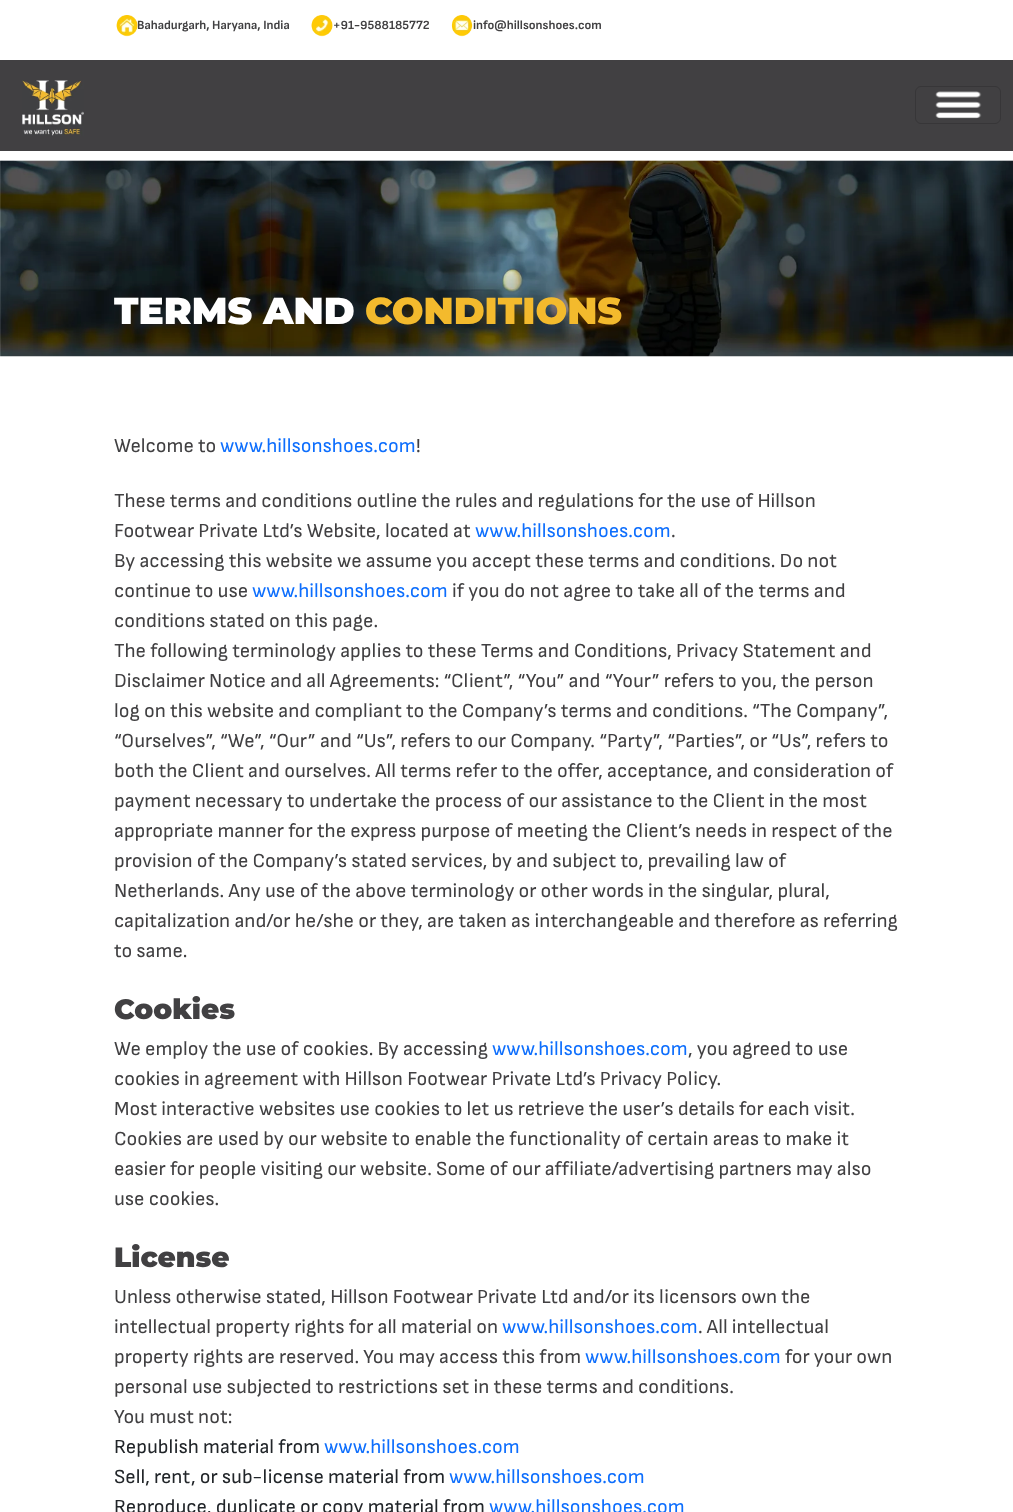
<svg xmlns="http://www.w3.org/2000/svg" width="1013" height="1512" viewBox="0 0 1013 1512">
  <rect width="100%" height="100%" fill="rgb(255,255,255)"/>
  <image x="116" y="15" width="22" height="22" href="pic1.png"/>
  <text x="137" y="29" font-family="Sofia Sans" font-size="12.5" font-weight="bold" fill="rgb(65,64,66)">Bahadurgarh, Haryana, India</text>
  <image x="311" y="15" width="22" height="22" href="pic2.png"/>
  <text x="333" y="29" font-family="Sofia Sans" font-size="12.5" font-weight="bold" fill="rgb(65,64,66)">+91-9588185772</text>
  <image x="451" y="15" width="22" height="22" href="pic3.png"/>
  <text x="473" y="29" font-family="Sofia Sans" font-size="12.5" font-weight="bold" fill="rgb(65,64,66)">info@hillsonshoes.com</text>
  <rect x="0" y="60" width="1013" height="91" fill="rgb(65,64,66)"/>
  <image x="22" y="80" width="62" height="56" href="pic4.png"/>
  <rect x="915.5" y="86.5" width="85" height="37" rx="5.5" fill="none" stroke="rgb(55,54,56)"/>
  <image x="935" y="91" width="47" height="28" href="pic5.png"/>
  <image x="0" y="160" width="1013" height="197" href="pic6.png"/>
  <text x="114" y="324" font-family="Montserrat" font-size="37.5" font-weight="900" fill="rgb(255,255,255)">TERMS AND</text>
  <text x="365" y="324" font-family="Montserrat" font-size="37.5" font-weight="900" fill="rgb(243,186,45)">CONDITIONS</text>
  <text x="114" y="452" font-family="Sofia Sans" font-size="20" fill="rgb(65,64,66)">Welcome to</text>
  <text x="220" y="452" font-family="Sofia Sans" font-size="20" fill="rgb(13,110,253)">www.hillsonshoes.com</text>
  <g font-family="Sofia Sans" font-size="20" fill="rgb(65,64,66)">
    <text x="416" y="452">!</text>
    <text>
      <tspan x="114" y="507">These terms and conditions outline the rules and regulations for the use of Hillson</tspan>
      <tspan x="114" y="537">Footwear Private Ltd’s Website, located at</tspan>
    </text>
  </g>
  <text x="475" y="537" font-family="Sofia Sans" font-size="20" fill="rgb(13,110,253)">www.hillsonshoes.com</text>
  <g font-family="Sofia Sans" font-size="20" fill="rgb(65,64,66)">
    <text x="671" y="537">.</text>
    <text>
      <tspan x="114" y="567">By accessing this website we assume you accept these terms and conditions. Do not</tspan>
      <tspan x="114" y="597">continue to use</tspan>
    </text>
  </g>
  <text x="252" y="597" font-family="Sofia Sans" font-size="20" fill="rgb(13,110,253)">www.hillsonshoes.com</text>
  <g font-family="Sofia Sans" font-size="20" fill="rgb(65,64,66)">
    <text x="452" y="597">if you do not agree to take all of the terms and</text>
    <text>
      <tspan x="114" y="627">conditions stated on this page.</tspan>
      <tspan x="114" y="657">The following terminology applies to these Terms and Conditions, Privacy Statement and</tspan>
      <tspan x="114" y="687">Disclaimer Notice and all Agreements: “Client”, “You” and “Your” refers to you, the person</tspan>
      <tspan x="114" y="717">log on this website and compliant to the Company’s terms and conditions. “The Company”,</tspan>
      <tspan x="114" y="747">“Ourselves”, “We”, “Our” and “Us”, refers to our Company. “Party”, “Parties”, or “Us”, refers to</tspan>
      <tspan x="114" y="777">both the Client and ourselves. All terms refer to the offer, acceptance, and consideration of</tspan>
      <tspan x="114" y="807">payment necessary to undertake the process of our assistance to the Client in the most</tspan>
      <tspan x="114" y="837">appropriate manner for the express purpose of meeting the Client’s needs in respect of the</tspan>
      <tspan x="114" y="867">provision of the Company’s stated services, by and subject to, prevailing law of</tspan>
      <tspan x="114" y="897">Netherlands. Any use of the above terminology or other words in the singular, plural,</tspan>
      <tspan x="114" y="927">capitalization and/or he/she or they, are taken as interchangeable and therefore as referring</tspan>
      <tspan x="114" y="957">to same.</tspan>
    </text>
  </g>
  <text x="114" y="1019" font-family="Montserrat" font-size="28" font-weight="900" fill="rgb(65,64,66)">Cookies</text>
  <text x="114" y="1055" font-family="Sofia Sans" font-size="20" fill="rgb(65,64,66)">We employ the use of cookies. By accessing</text>
  <text x="492" y="1055" font-family="Sofia Sans" font-size="20" fill="rgb(13,110,253)">www.hillsonshoes.com</text>
  <g font-family="Sofia Sans" font-size="20" fill="rgb(65,64,66)">
    <text x="688" y="1055">, you agreed to use</text>
    <text>
      <tspan x="114" y="1085">cookies in agreement with Hillson Footwear Private Ltd’s Privacy Policy.</tspan>
      <tspan x="114" y="1115">Most interactive websites use cookies to let us retrieve the user’s details for each visit.</tspan>
      <tspan x="114" y="1145">Cookies are used by our website to enable the functionality of certain areas to make it</tspan>
      <tspan x="114" y="1175">easier for people visiting our website. Some of our affiliate/advertising partners may also</tspan>
      <tspan x="114" y="1205">use cookies.</tspan>
    </text>
  </g>
  <text x="114" y="1267" font-family="Montserrat" font-size="28" font-weight="900" fill="rgb(65,64,66)">License</text>
  <g font-family="Sofia Sans" font-size="20" fill="rgb(65,64,66)">
    <text>
      <tspan x="114" y="1303">Unless otherwise stated, Hillson Footwear Private Ltd and/or its licensors own the</tspan>
      <tspan x="114" y="1333">intellectual property rights for all material on</tspan>
    </text>
  </g>
  <text x="502" y="1333" font-family="Sofia Sans" font-size="20" fill="rgb(13,110,253)">www.hillsonshoes.com</text>
  <g font-family="Sofia Sans" font-size="20" fill="rgb(65,64,66)">
    <text x="698" y="1333">. All intellectual</text>
    <text x="114" y="1363">property rights are reserved. You may access this from</text>
  </g>
  <text x="585" y="1363" font-family="Sofia Sans" font-size="20" fill="rgb(13,110,253)">www.hillsonshoes.com</text>
  <g font-family="Sofia Sans" font-size="20" fill="rgb(65,64,66)">
    <text x="785" y="1363">for your own</text>
    <text>
      <tspan x="114" y="1393">personal use subjected to restrictions set in these terms and conditions.</tspan>
      <tspan x="114" y="1423">You must not:</tspan>
    </text>
  </g>
  <text x="114" y="1453" font-family="Sofia Sans" font-size="20" fill="rgb(33,37,41)">Republish material from</text>
  <text x="324" y="1453" font-family="Sofia Sans" font-size="20" fill="rgb(13,110,253)">www.hillsonshoes.com</text>
  <text x="114" y="1483" font-family="Sofia Sans" font-size="20" fill="rgb(33,37,41)">Sell, rent, or sub-license material from</text>
  <text x="449" y="1483" font-family="Sofia Sans" font-size="20" fill="rgb(13,110,253)">www.hillsonshoes.com</text>
  <text x="114" y="1513" font-family="Sofia Sans" font-size="20" fill="rgb(33,37,41)">Reproduce, duplicate or copy material from</text>
  <text x="489" y="1513" font-family="Sofia Sans" font-size="20" fill="rgb(13,110,253)">www.hillsonshoes.com</text>
</svg>
